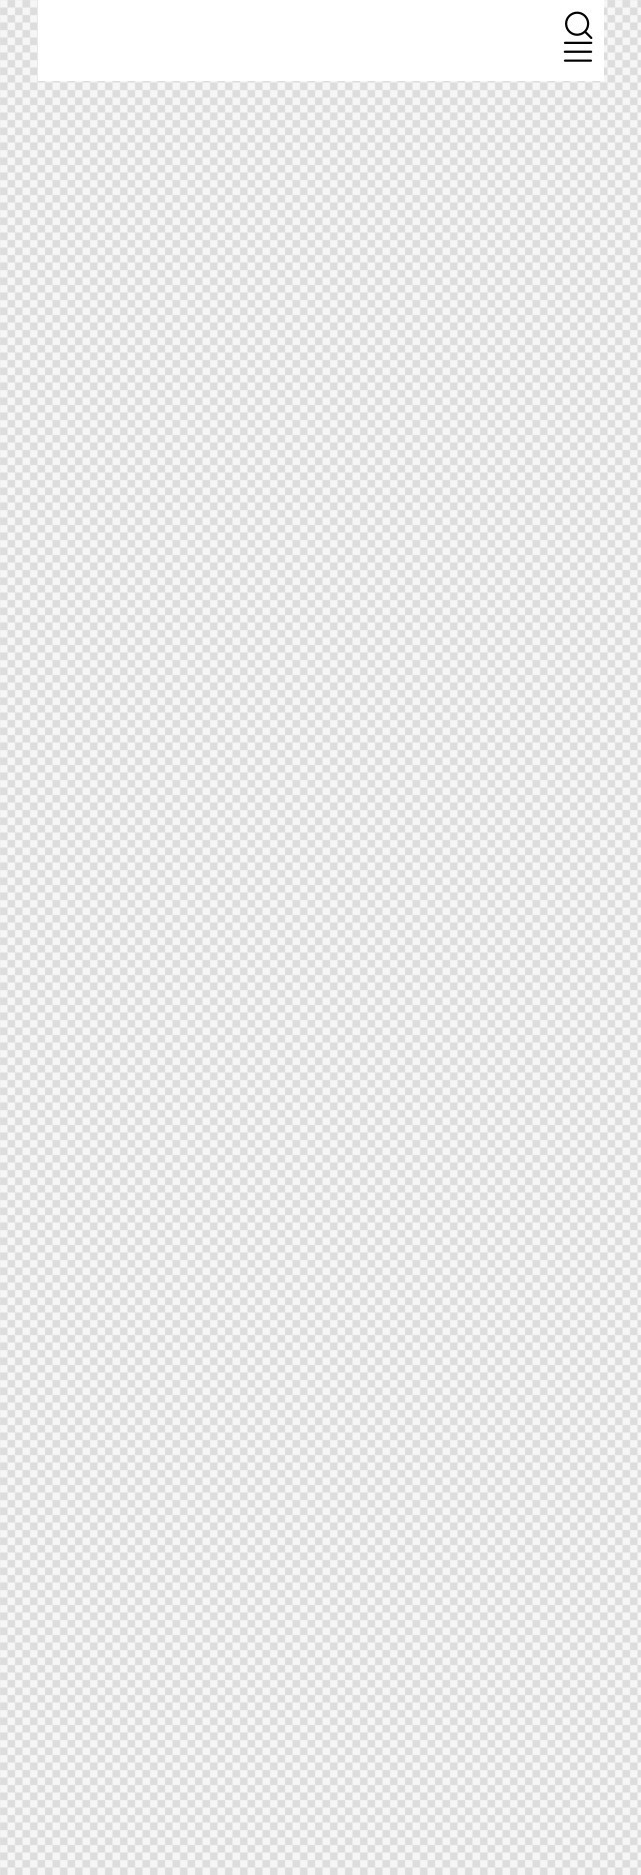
<svg xmlns="http://www.w3.org/2000/svg" width="641" height="1875" viewBox="0 0 641 1875">
  <rect width="100%" height="100%" fill="rgb(255,255,255)"/>
  <image x="0" y="0" width="641" height="1875" href="pic1.png"/>
  <rect x="38" y="0" width="566" height="81" fill="rgb(255,255,255)"/>
  <image x="565" y="11" width="28" height="28" href="pic2.png"/>
  <image x="563" y="41" width="30" height="21" href="pic3.png"/>
</svg>
